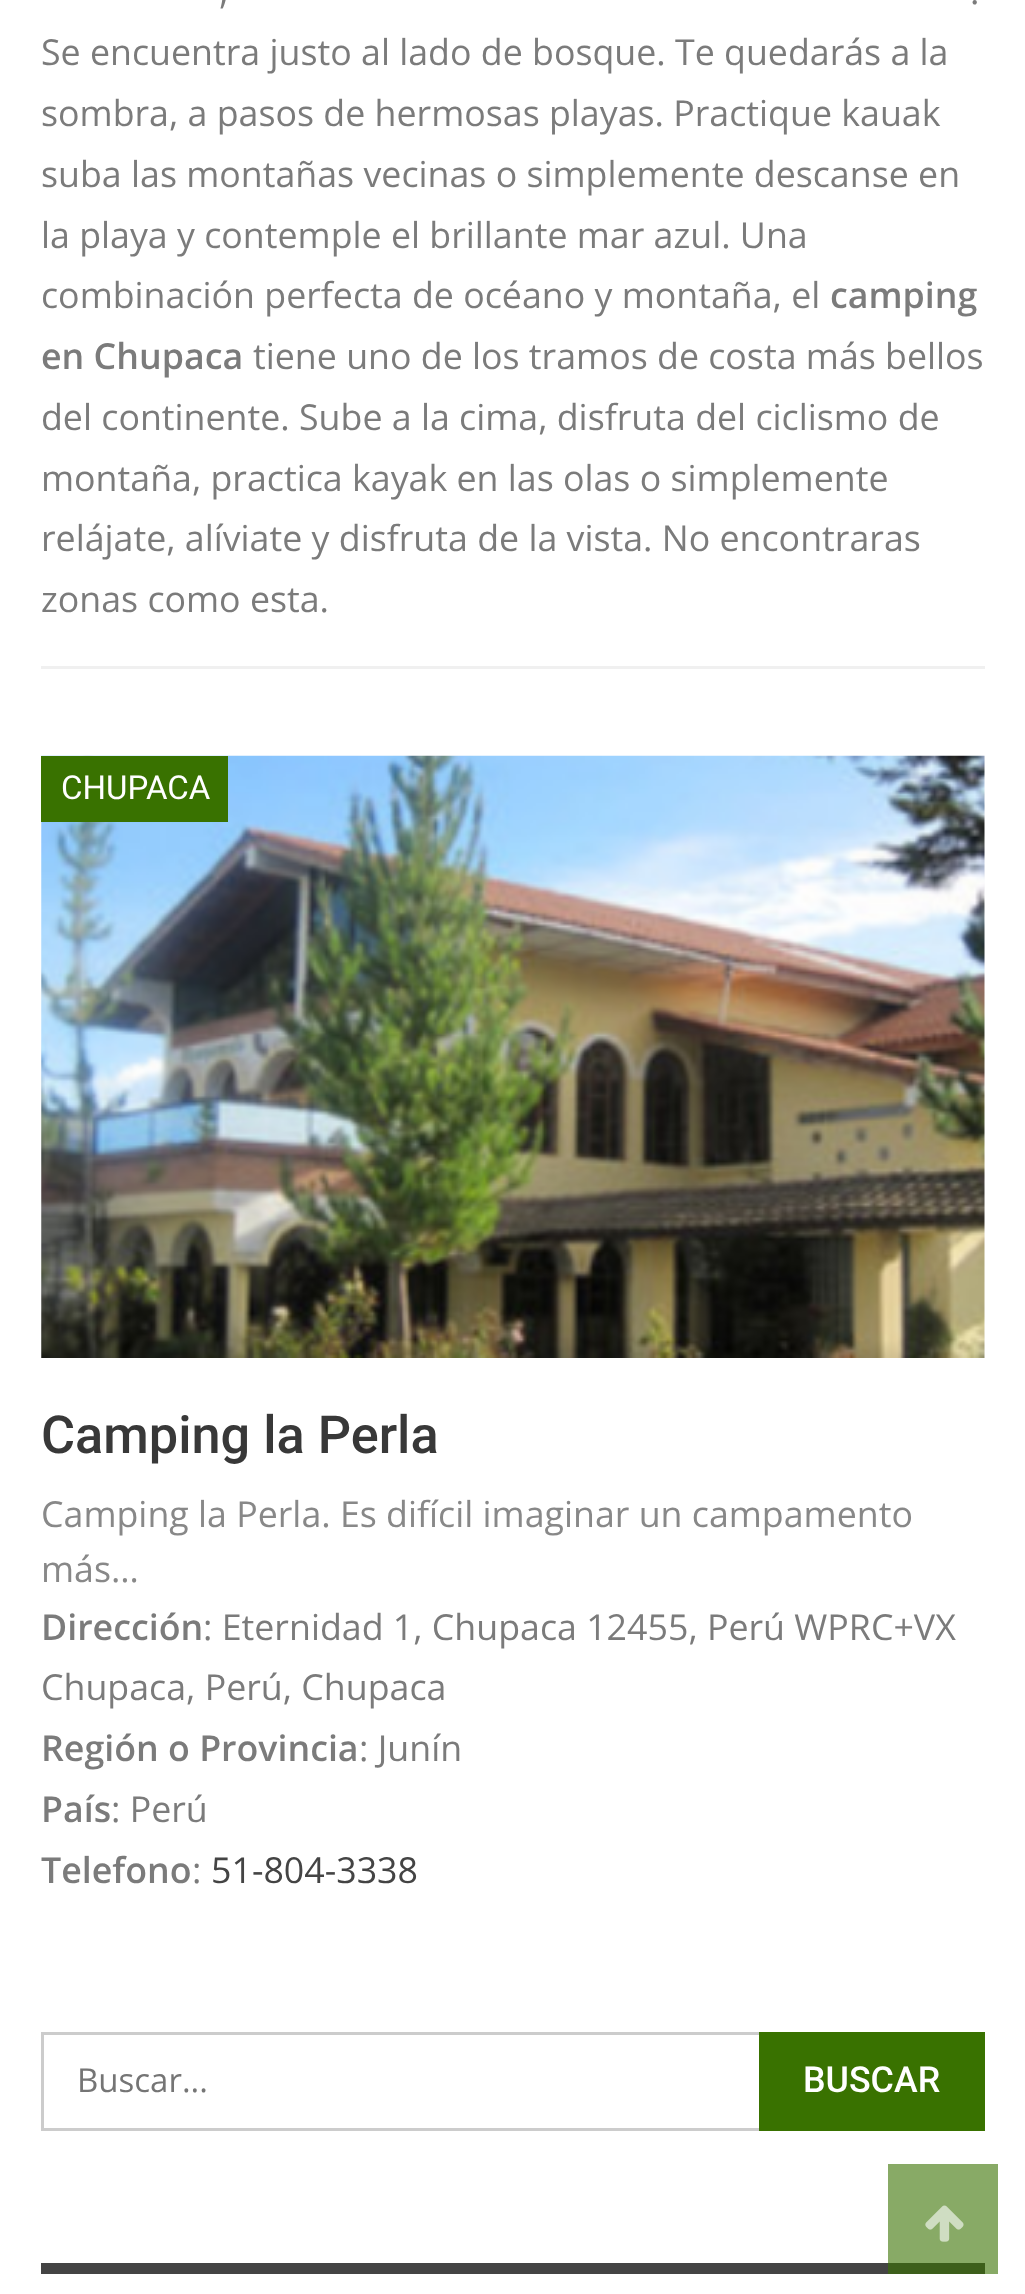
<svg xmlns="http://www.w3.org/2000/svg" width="1025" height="2294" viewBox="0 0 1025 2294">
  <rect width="100%" height="100%" fill="rgb(255,255,255)"/>
  <rect x="41" y="666" width="944" height="3" fill="rgb(240,240,240)"/>
  <g font-family="Open Sans" font-size="35.75" fill="rgb(123,123,123)">
    <text x="219" y="4">,</text>
    <text x="970" y="4">.</text>
    <text>
      <tspan x="41" y="65">Se encuentra justo al lado de bosque. Te quedarás a la</tspan>
      <tspan x="41" y="126">sombra, a pasos de hermosas playas. Practique kauak</tspan>
      <tspan x="41" y="187">suba las montañas vecinas o simplemente descanse en</tspan>
      <tspan x="41" y="248">la playa y contemple el brillante mar azul. Una</tspan>
      <tspan x="41" y="308">combinación perfecta de océano y montaña, el</tspan>
    </text>
  </g>
  <g font-family="Open Sans" font-size="35.75" font-weight="600" fill="rgb(123,123,123)">
    <text x="830" y="308">camping</text>
    <text x="41" y="369">en Chupaca</text>
  </g>
  <g font-family="Open Sans" font-size="35.75" fill="rgb(123,123,123)">
    <text x="253" y="369">tiene uno de los tramos de costa más bellos</text>
    <text>
      <tspan x="41" y="430">del continente. Sube a la cima, disfruta del ciclismo de</tspan>
      <tspan x="41" y="491">montaña, practica kayak en las olas o simplemente</tspan>
      <tspan x="41" y="551">relájate, alíviate y disfruta de la vista. No encontraras</tspan>
      <tspan x="41" y="612">zonas como esta.</tspan>
    </text>
  </g>
  <image x="41" y="755" width="944" height="603" href="pic1.png"/>
  <rect x="41" y="756" width="187" height="66" fill="rgb(57,114,0)"/>
  <text x="61" y="799" font-family="Roboto" font-size="33" fill="rgb(255,255,255)">CHUPACA</text>
  <text x="41" y="1453" font-family="Roboto" font-size="52.25" font-weight="500" fill="rgb(56,56,56)">Camping la Perla</text>
  <g font-family="Open Sans" font-size="35.75" fill="rgb(136,136,136)">
    <text>
      <tspan x="41" y="1527">Camping la Perla. Es difícil imaginar un campamento</tspan>
      <tspan x="41" y="1582">más…</tspan>
    </text>
  </g>
  <text x="41" y="1640" font-family="Open Sans" font-size="35.75" font-weight="600" fill="rgb(123,123,123)">Dirección</text>
  <g font-family="Open Sans" font-size="35.75" fill="rgb(123,123,123)">
    <text x="203" y="1640">: Eternidad 1, Chupaca 12455, Perú WPRC+VX</text>
    <text x="41" y="1700">Chupaca, Perú, Chupaca</text>
  </g>
  <text x="41" y="1761" font-family="Open Sans" font-size="35.75" font-weight="600" fill="rgb(123,123,123)">Región o Provincia</text>
  <text x="359" y="1761" font-family="Open Sans" font-size="35.75" fill="rgb(123,123,123)">: Junín</text>
  <text x="41" y="1822" font-family="Open Sans" font-size="35.75" font-weight="600" fill="rgb(123,123,123)">País</text>
  <text x="111" y="1822" font-family="Open Sans" font-size="35.75" fill="rgb(123,123,123)">: Perú</text>
  <text x="41" y="1883" font-family="Open Sans" font-size="35.75" font-weight="600" fill="rgb(123,123,123)">Telefono</text>
  <text x="192" y="1883" font-family="Open Sans" font-size="35.75" fill="rgb(123,123,123)">:</text>
  <text x="211" y="1883" font-family="Open Sans" font-size="35.75" fill="rgb(68,68,68)">51-804-3338</text>
  <rect x="42.5" y="2033.5" width="941" height="96" fill="none" stroke="rgb(204,204,204)" stroke-width="3"/>
  <text x="77" y="2092" font-family="Open Sans" font-size="33" fill="rgb(117,117,117)">Buscar...</text>
  <rect x="759" y="2032" width="226" height="99" fill="rgb(57,114,0)"/>
  <text x="803" y="2092" font-family="Roboto" font-size="35.75" font-weight="500" fill="rgb(255,255,255)">BUSCAR</text>
  <rect x="41" y="2263" width="944" height="11" fill="rgb(68,68,68)"/>
  <rect x="888" y="2164" width="110" height="110" fill="rgba(57,114,0,0.6)"/>
  <image x="925" y="2205" width="39" height="37" href="pic2.png"/>
</svg>
